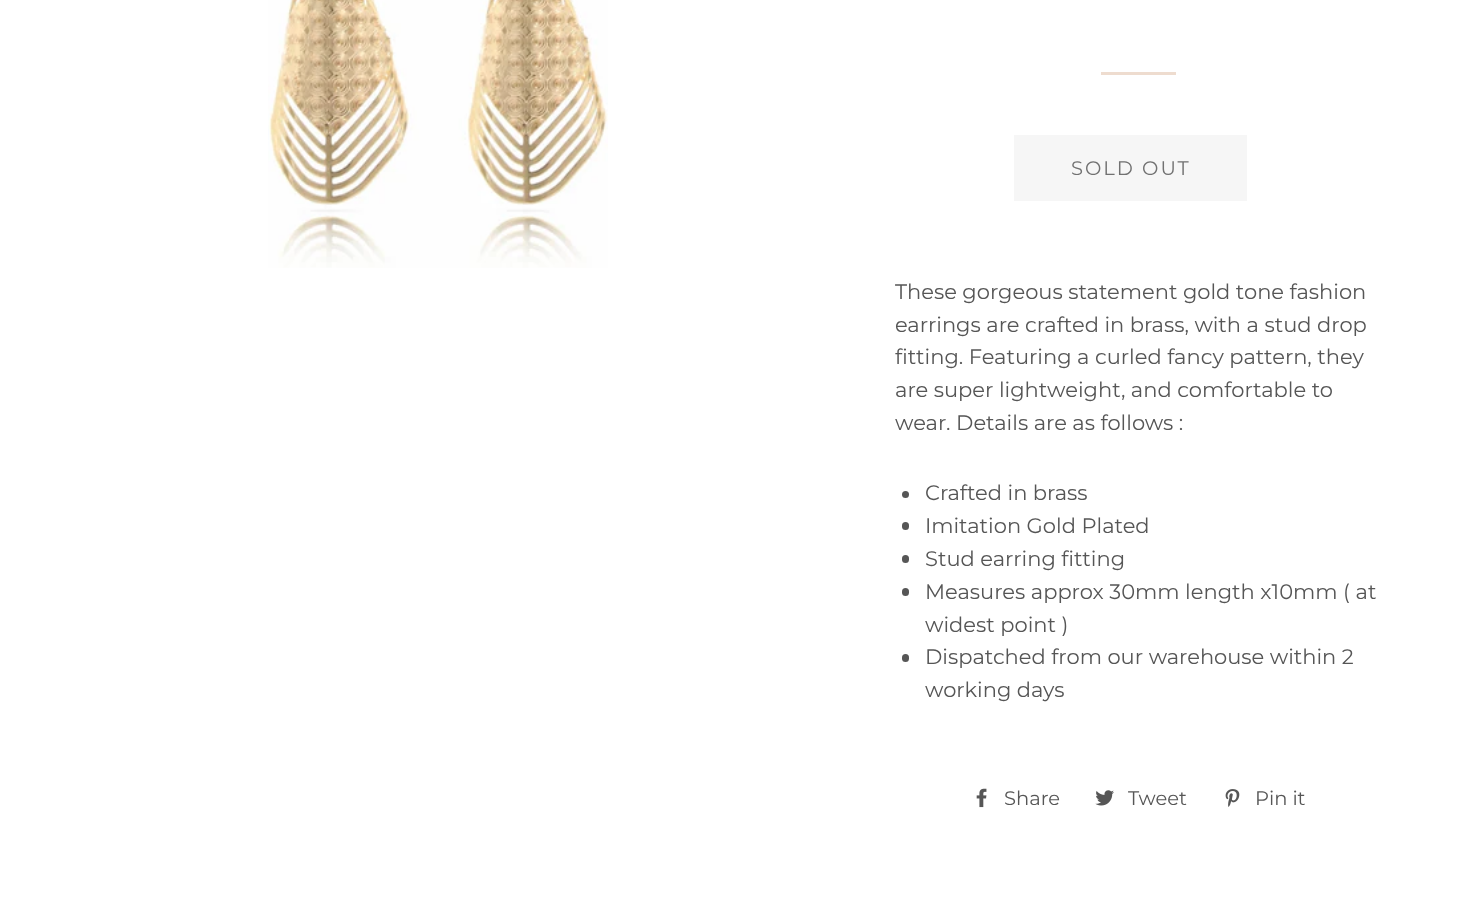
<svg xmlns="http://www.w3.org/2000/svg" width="1463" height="920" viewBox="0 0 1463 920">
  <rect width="100%" height="100%" fill="rgb(255,255,255)"/>
  <image x="268" y="0" width="340" height="268" href="pic1.png"/>
  <rect x="1101" y="72" width="75" height="3" fill="rgb(238,220,207)"/>
  <rect x="1014" y="135" width="233" height="66" fill="rgb(246,246,246)"/>
  <text x="1071" y="175" font-family="Montserrat" font-size="19.5" letter-spacing="2" fill="rgb(113,113,113)">SOLD OUT</text>
  <g font-family="Montserrat" font-size="21" fill="rgb(86,86,86)">
    <text>
      <tspan x="895" y="299">These gorgeous statement gold tone fashion</tspan>
      <tspan x="895" y="332">earrings are crafted in brass, with a stud drop</tspan>
      <tspan x="895" y="364">fitting. Featuring a curled fancy pattern, they</tspan>
      <tspan x="895" y="397">are super lightweight, and comfortable to</tspan>
      <tspan x="895" y="430">wear. Details are as follows :</tspan>
    </text>
  </g>
  <circle cx="905.5" cy="494.5" r="3.5" fill="rgb(86,86,86)"/>
  <text x="925" y="500" font-family="Montserrat" font-size="21" fill="rgb(86,86,86)">Crafted in brass</text>
  <rect x="902" y="522" width="7" height="8" rx="3.5" fill="rgb(86,86,86)"/>
  <text x="925" y="533" font-family="Montserrat" font-size="21" fill="rgb(86,86,86)">Imitation Gold Plated</text>
  <rect x="902" y="555" width="7" height="8" rx="3.5" fill="rgb(86,86,86)"/>
  <text x="925" y="566" font-family="Montserrat" font-size="21" fill="rgb(86,86,86)">Stud earring fitting</text>
  <rect x="902" y="588" width="7" height="8" rx="3.5" fill="rgb(86,86,86)"/>
  <g font-family="Montserrat" font-size="21" fill="rgb(86,86,86)">
    <text>
      <tspan x="925" y="599">Measures approx 30mm length x10mm ( at</tspan>
      <tspan x="925" y="632">widest point )</tspan>
    </text>
  </g>
  <rect x="902" y="654" width="7" height="8" rx="3.5" fill="rgb(86,86,86)"/>
  <g font-family="Montserrat" font-size="21" fill="rgb(86,86,86)">
    <text>
      <tspan x="925" y="664">Dispatched from our warehouse within 2</tspan>
      <tspan x="925" y="697">working days</tspan>
    </text>
  </g>
  <image x="976" y="788" width="11" height="20" href="pic2.png"/>
  <text x="1004" y="805" font-family="Montserrat" font-size="19.5" fill="rgb(86,86,86)">Share</text>
  <image x="1095" y="790" width="19" height="16" href="pic3.png"/>
  <text x="1128" y="805" font-family="Montserrat" font-size="19.5" fill="rgb(86,86,86)">Tweet</text>
  <image x="1225" y="789" width="15" height="18" href="pic4.png"/>
  <text x="1255" y="805" font-family="Montserrat" font-size="19.5" fill="rgb(86,86,86)">Pin it</text>
</svg>
